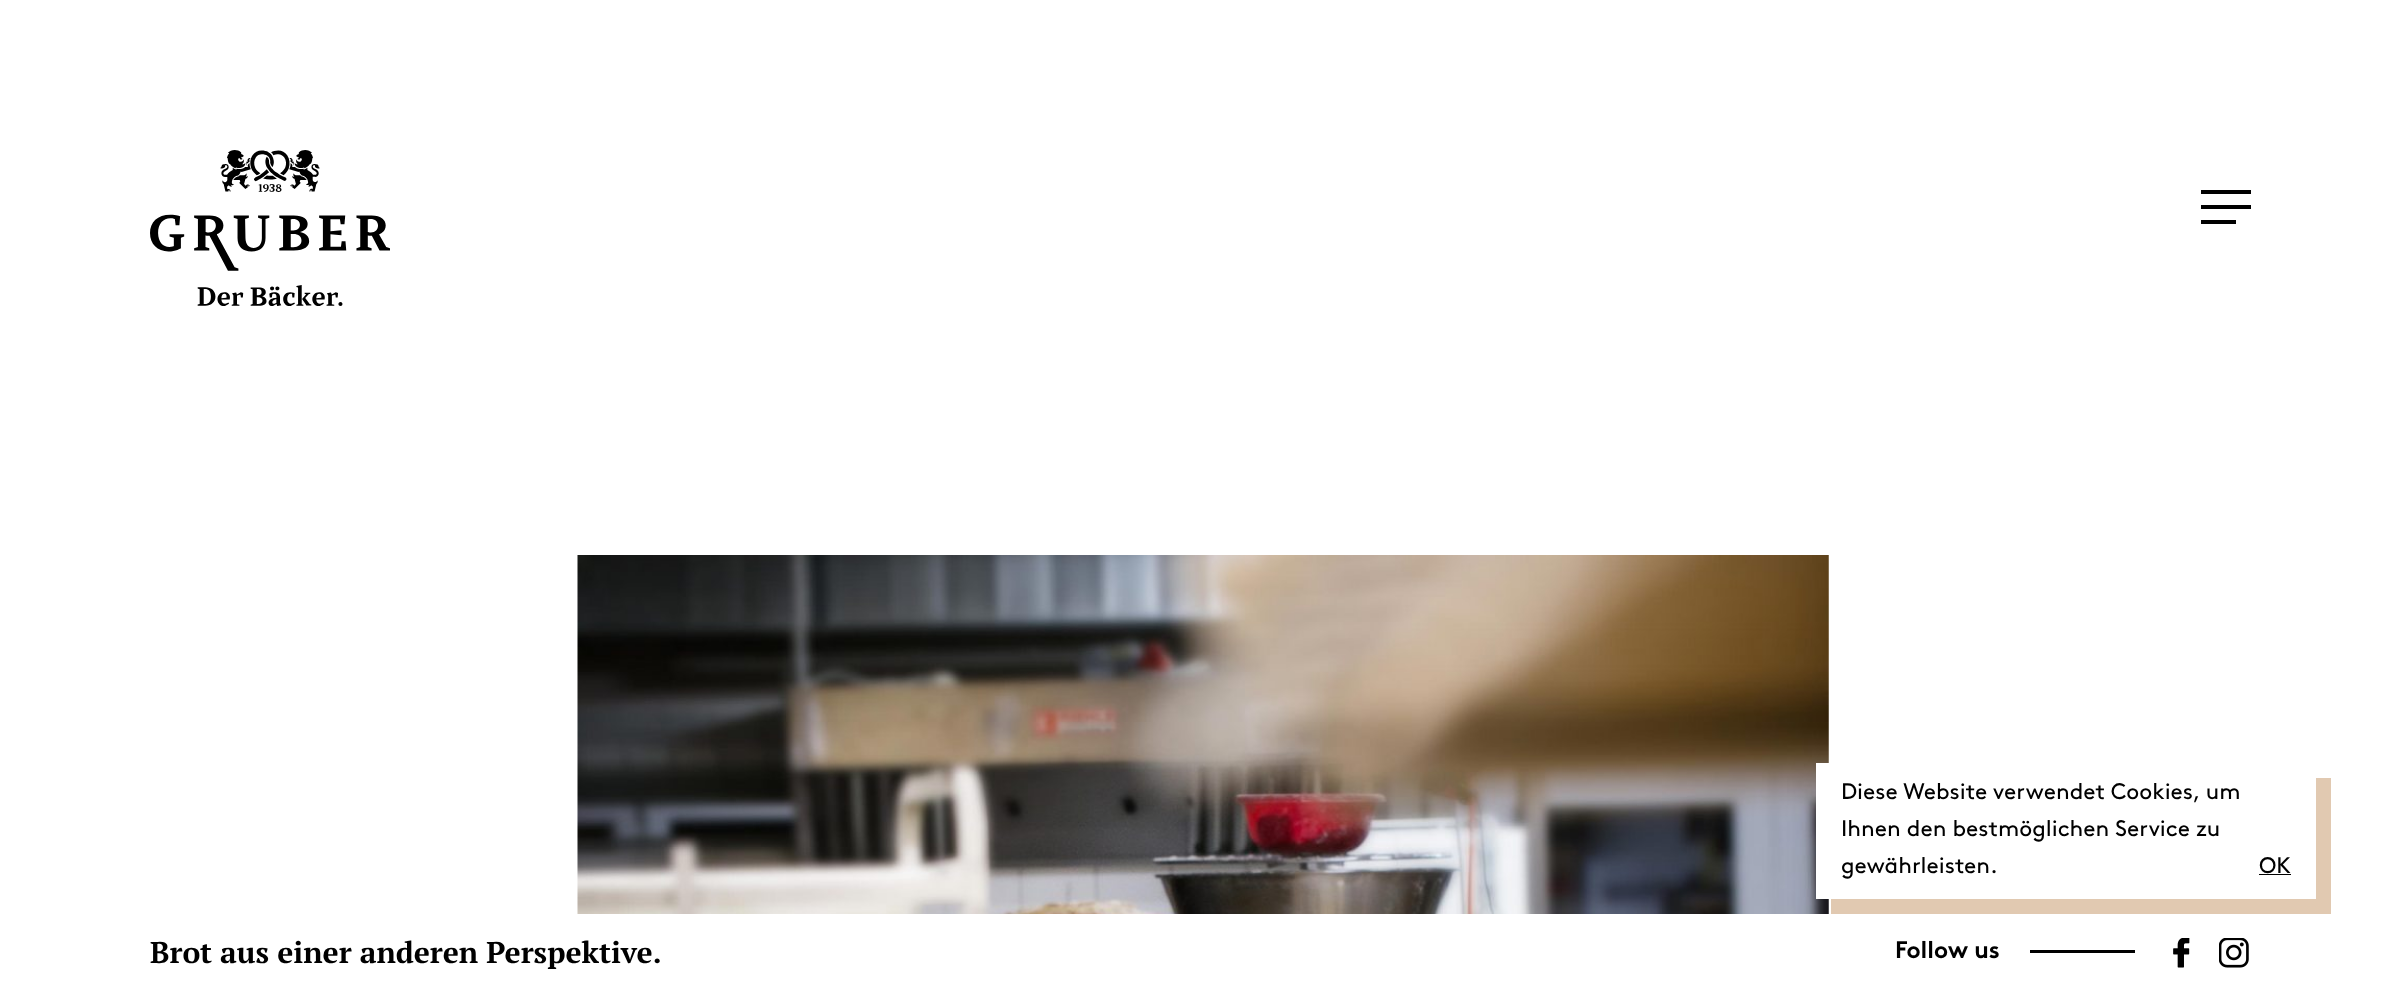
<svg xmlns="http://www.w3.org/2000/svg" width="2406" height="988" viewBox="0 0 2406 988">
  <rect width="100%" height="100%" fill="rgb(255,255,255)"/>
  <path d="M1831 899V914H2331V778H2316V899Z" fill="rgb(225,201,177)"/>
  <image x="577" y="555" width="1252" height="359" href="pic2.png"/>
  <rect x="1816" y="763" width="13" height="136" fill="rgb(255,255,255)"/>
  <g font-family="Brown" font-size="22.5" fill="rgb(0,0,0)">
    <text>
      <tspan x="1841" y="799">Diese Website verwendet Cookies, um</tspan>
      <tspan x="1841" y="836">Ihnen den bestmöglichen Service zu</tspan>
      <tspan x="1841" y="873">gewährleisten.</tspan>
    </text>
    <text x="2259" y="873">OK</text>
  </g>
  <rect x="2259" y="874" width="32" height="1" fill="rgb(0,0,0)"/>
  <image x="150" y="150" width="240" height="156" href="pic1.png"/>
  <rect x="2201" y="205" width="50" height="4" fill="rgb(0,0,0)"/>
  <rect x="2201" y="190" width="50" height="4" fill="rgb(0,0,0)"/>
  <rect x="2201" y="220" width="35" height="4" fill="rgb(0,0,0)"/>
  <text x="150" y="963" font-family="PT Serif" font-size="30" font-weight="bold" fill="rgb(0,0,0)">Brot aus einer anderen Perspektive.</text>
  <text x="1895" y="958" font-family="Brown" font-size="24" font-weight="bold" fill="rgb(0,0,0)">Follow us</text>
  <rect x="2030" y="950" width="105" height="3" fill="rgb(0,0,0)"/>
  <image x="2173" y="938" width="17" height="30" href="pic3.png"/>
  <image x="2219" y="938" width="30" height="30" href="pic4.png"/>
</svg>
